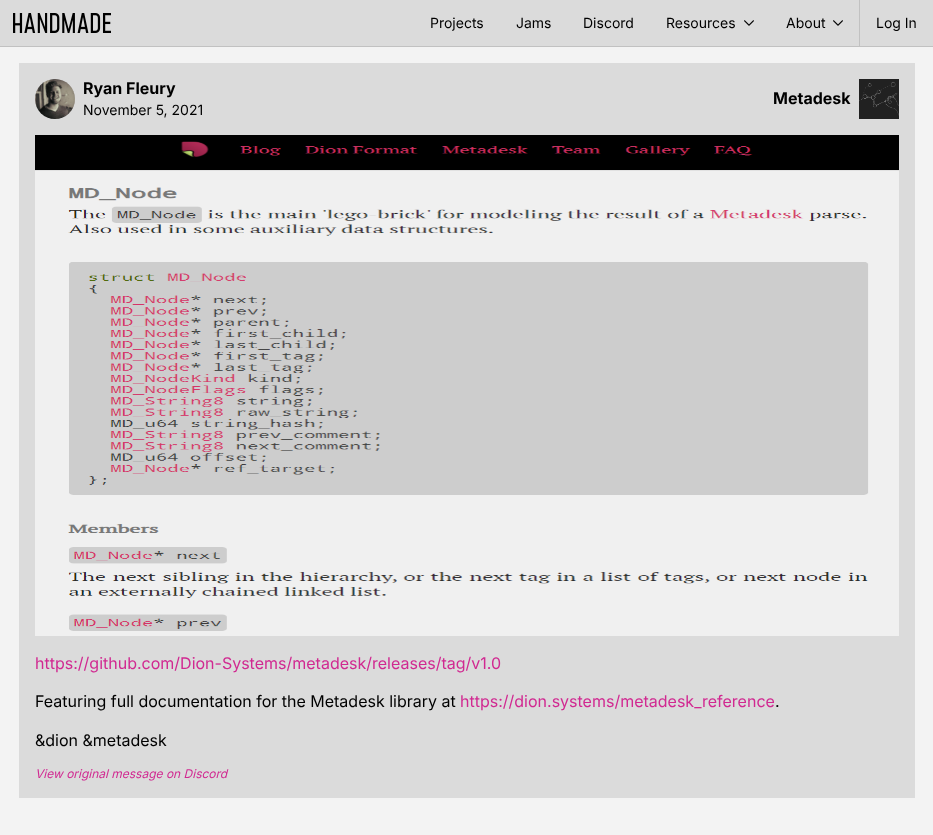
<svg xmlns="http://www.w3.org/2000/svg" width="933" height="835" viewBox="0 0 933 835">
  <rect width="100%" height="100%" fill="rgb(243,243,243)"/>
  <rect x="0" y="0" width="933" height="46" fill="rgb(219,219,219)"/>
  <rect x="0" y="46" width="933" height="1" fill="rgb(193,193,193)"/>
  <image x="13" y="13" width="98" height="20" href="pic1.png"/>
  <g font-family="Inter" font-size="14" fill="rgb(0,0,0)">
    <text x="430" y="28">Projects</text>
    <text x="516" y="28">Jams</text>
    <text x="583" y="28">Discord</text>
    <text x="666" y="28">Resources</text>
  </g>
  <image x="744" y="20" width="10" height="6" href="pic2.png"/>
  <text x="786" y="28" font-family="Inter" font-size="14" fill="rgb(0,0,0)">About</text>
  <image x="833" y="20" width="10" height="6" href="pic2.png"/>
  <rect x="859" y="0" width="1" height="46" fill="rgb(193,193,193)"/>
  <text x="876" y="28" font-family="Inter" font-size="14" fill="rgb(0,0,0)">Log In</text>
  <rect x="19" y="63" width="896" height="735" fill="rgb(219,219,219)"/>
  <circle cx="55" cy="99" r="20" fill="rgb(193,193,193)"/>
  <image x="35" y="79" width="40" height="40" href="pic3.png"/>
  <text x="83" y="94" font-family="Inter" font-size="16" font-weight="bold" fill="rgb(0,0,0)">Ryan Fleury</text>
  <text x="83" y="115" font-family="Inter" font-size="14" fill="rgb(0,0,0)">November 5, 2021</text>
  <text x="773" y="104" font-family="Inter" font-size="16" font-weight="bold" fill="rgb(0,0,0)">Metadesk</text>
  <image x="859" y="79" width="40" height="40" href="pic4.png"/>
  <image x="35" y="135" width="864" height="501" href="pic5.png"/>
  <text x="35" y="669" font-family="Inter" font-size="16" fill="rgb(209,41,145)">https://github.com/Dion-Systems/metadesk/releases/tag/v1.0</text>
  <text x="35" y="707" font-family="Inter" font-size="16" fill="rgb(0,0,0)">Featuring full documentation for the Metadesk library at</text>
  <text x="460" y="707" font-family="Inter" font-size="16" fill="rgb(209,41,145)">https://dion.systems/metadesk_reference</text>
  <g font-family="Inter" font-size="16" fill="rgb(0,0,0)">
    <text x="775" y="707">.</text>
    <text x="35" y="746">&amp;dion &amp;metadesk</text>
  </g>
  <text x="35" y="778" font-family="Inter" font-size="12" font-style="italic" fill="rgb(209,41,145)">View original message on Discord</text>
</svg>
